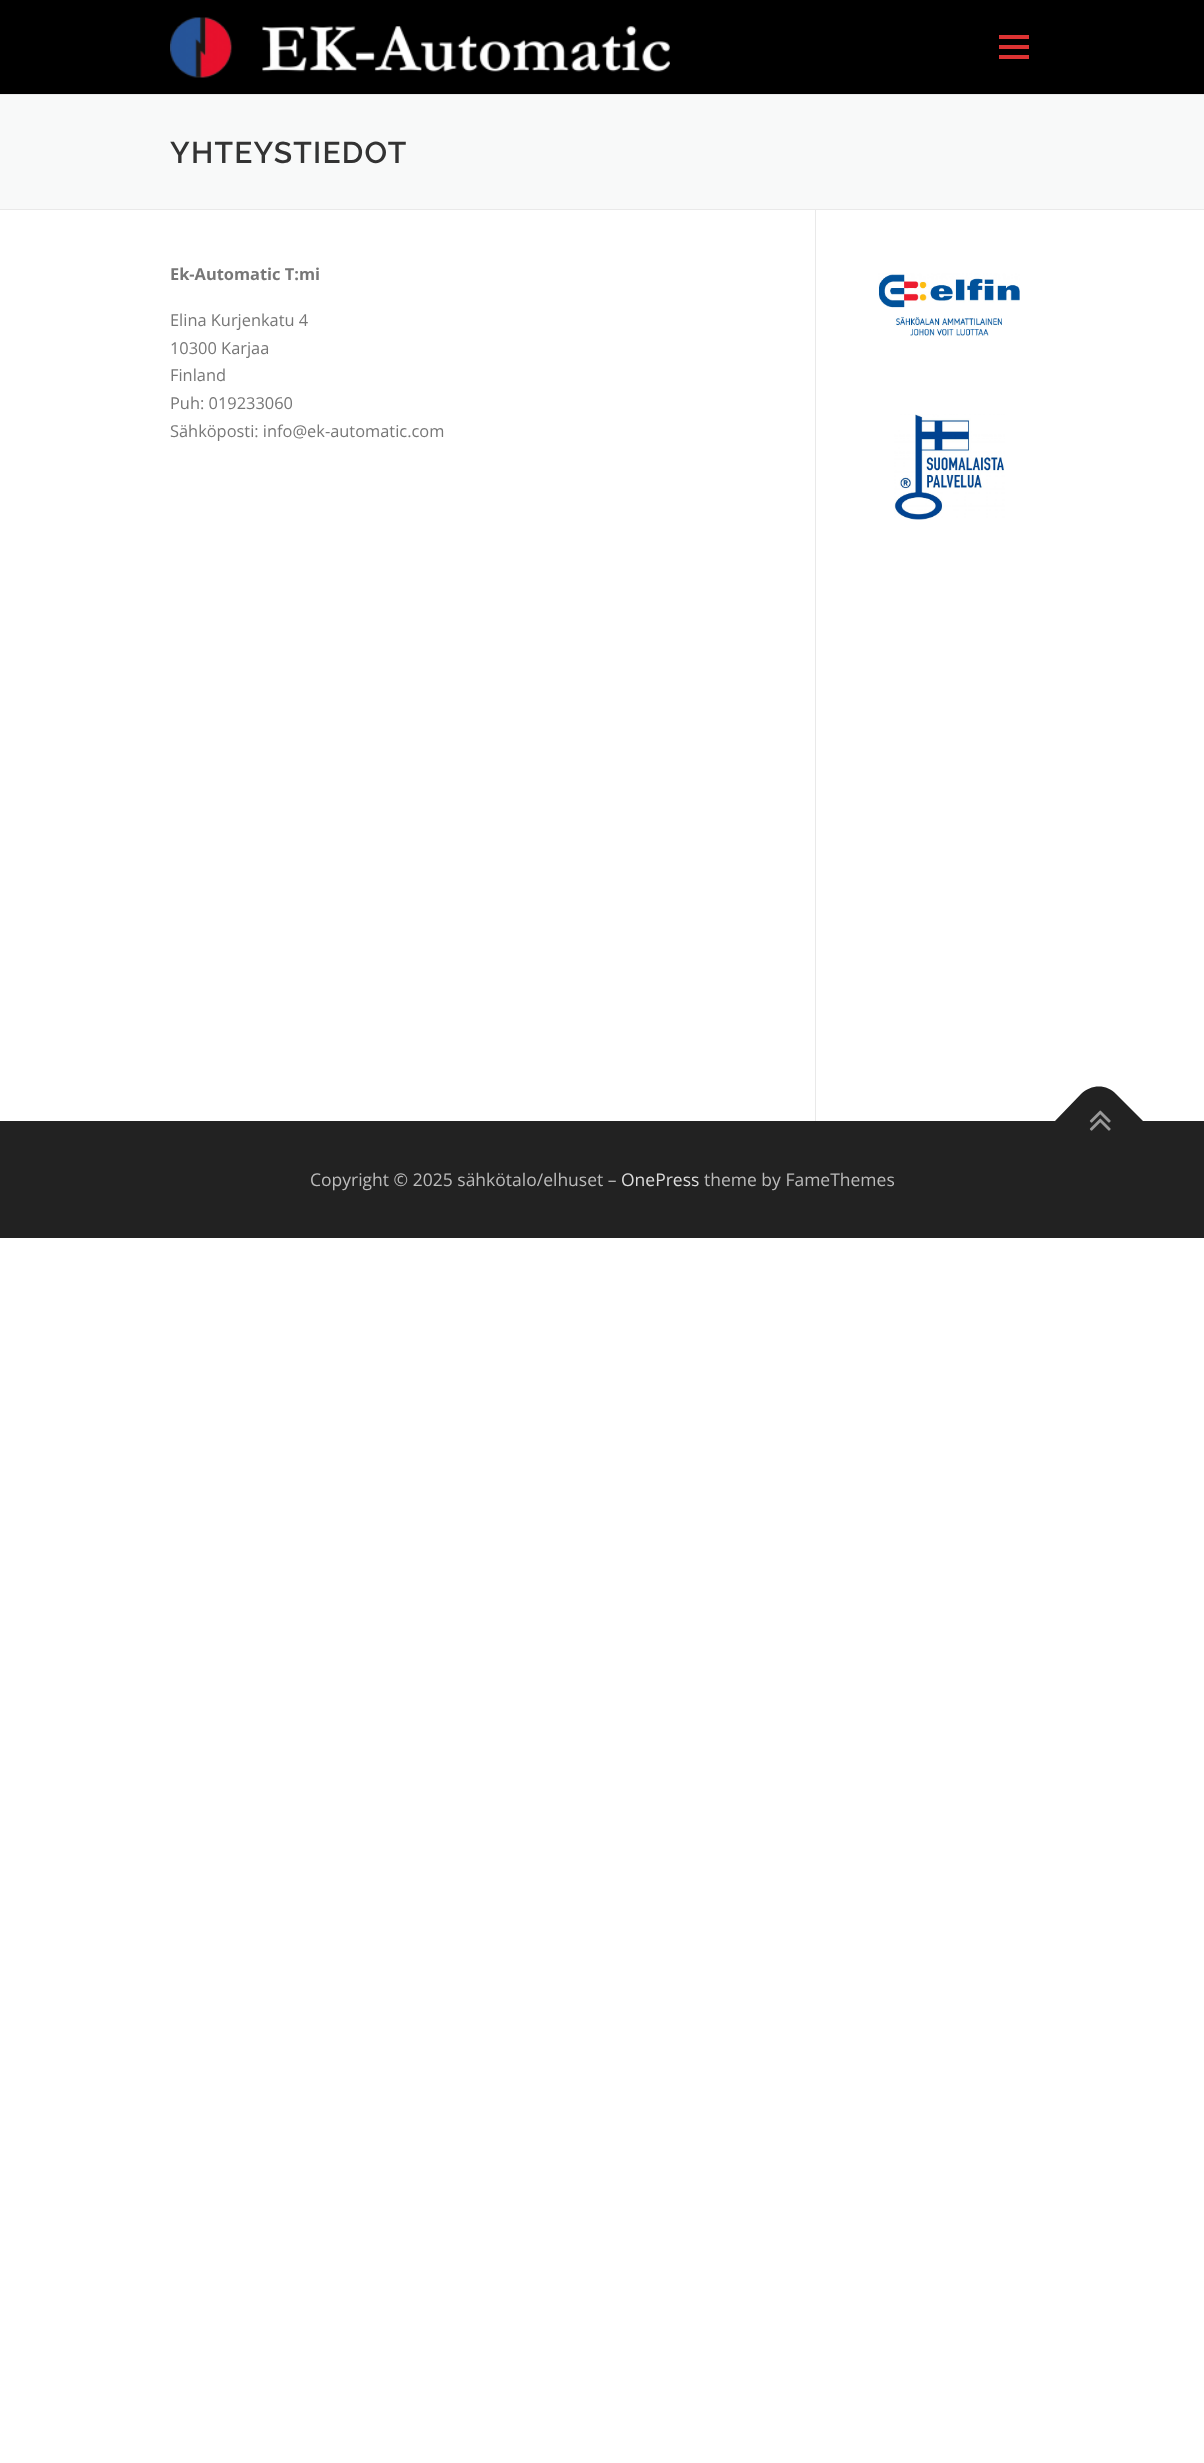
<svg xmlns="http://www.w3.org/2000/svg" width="1204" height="2463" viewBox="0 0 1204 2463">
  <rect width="100%" height="100%" fill="rgb(255,255,255)"/>
  <rect x="0" y="0" width="1204" height="94" fill="rgb(0,0,0)"/>
  <image x="170" y="17" width="500" height="61" href="pic1.png"/>
  <rect x="999" y="45" width="30" height="4" fill="rgb(221,51,51)"/>
  <rect x="999" y="35" width="30" height="4" fill="rgb(221,51,51)"/>
  <rect x="999" y="55" width="30" height="4" fill="rgb(221,51,51)"/>
  <rect x="0" y="95" width="1204" height="114" fill="rgb(248,249,249)"/>
  <rect x="0" y="94" width="1204" height="1" fill="rgb(233,233,233)"/>
  <rect x="0" y="209" width="1204" height="1" fill="rgb(233,233,233)"/>
  <text x="170" y="163" font-family="Raleway" font-size="30" font-weight="600" letter-spacing="1.25" fill="rgb(51,51,51)">YHTEYSTIEDOT</text>
  <rect x="815" y="210" width="1" height="911" fill="rgb(233,233,233)"/>
  <text x="170" y="280" font-family="Open Sans" font-size="16.4" font-weight="bold" fill="rgb(119,119,119)">Ek-Automatic T:mi</text>
  <g font-family="Open Sans" font-size="16.4" fill="rgb(119,119,119)">
    <text>
      <tspan x="170" y="326">Elina Kurjenkatu 4</tspan>
      <tspan x="170" y="354">10300 Karjaa</tspan>
      <tspan x="170" y="381">Finland</tspan>
      <tspan x="170" y="409">Puh: 019233060</tspan>
      <tspan x="170" y="437">Sähköposti: info@ek-automatic.com</tspan>
    </text>
  </g>
  <image x="878" y="273" width="142" height="64" href="pic2.png"/>
  <image x="894" y="414" width="111" height="106" href="pic3.png"/>
  <rect x="0" y="1121" width="1204" height="117" fill="rgb(34,34,34)"/>
  <path d="M1055 1121L1081 1094C1091 1084 1107 1084 1116 1094L1143 1121L1099 1165Z" fill="rgb(34,34,34)"/>
  <image x="1089" y="1110" width="22" height="21" href="pic4.png"/>
  <text x="310" y="1186" font-family="Open Sans" font-size="17.5" fill="rgb(187,187,187)">Copyright © 2025 sähkötalo/elhuset –</text>
  <text x="621" y="1186" font-family="Open Sans" font-size="17.5" fill="rgb(221,221,221)">OnePress</text>
  <text x="704" y="1186" font-family="Open Sans" font-size="17.5" fill="rgb(187,187,187)">theme by FameThemes</text>
</svg>
